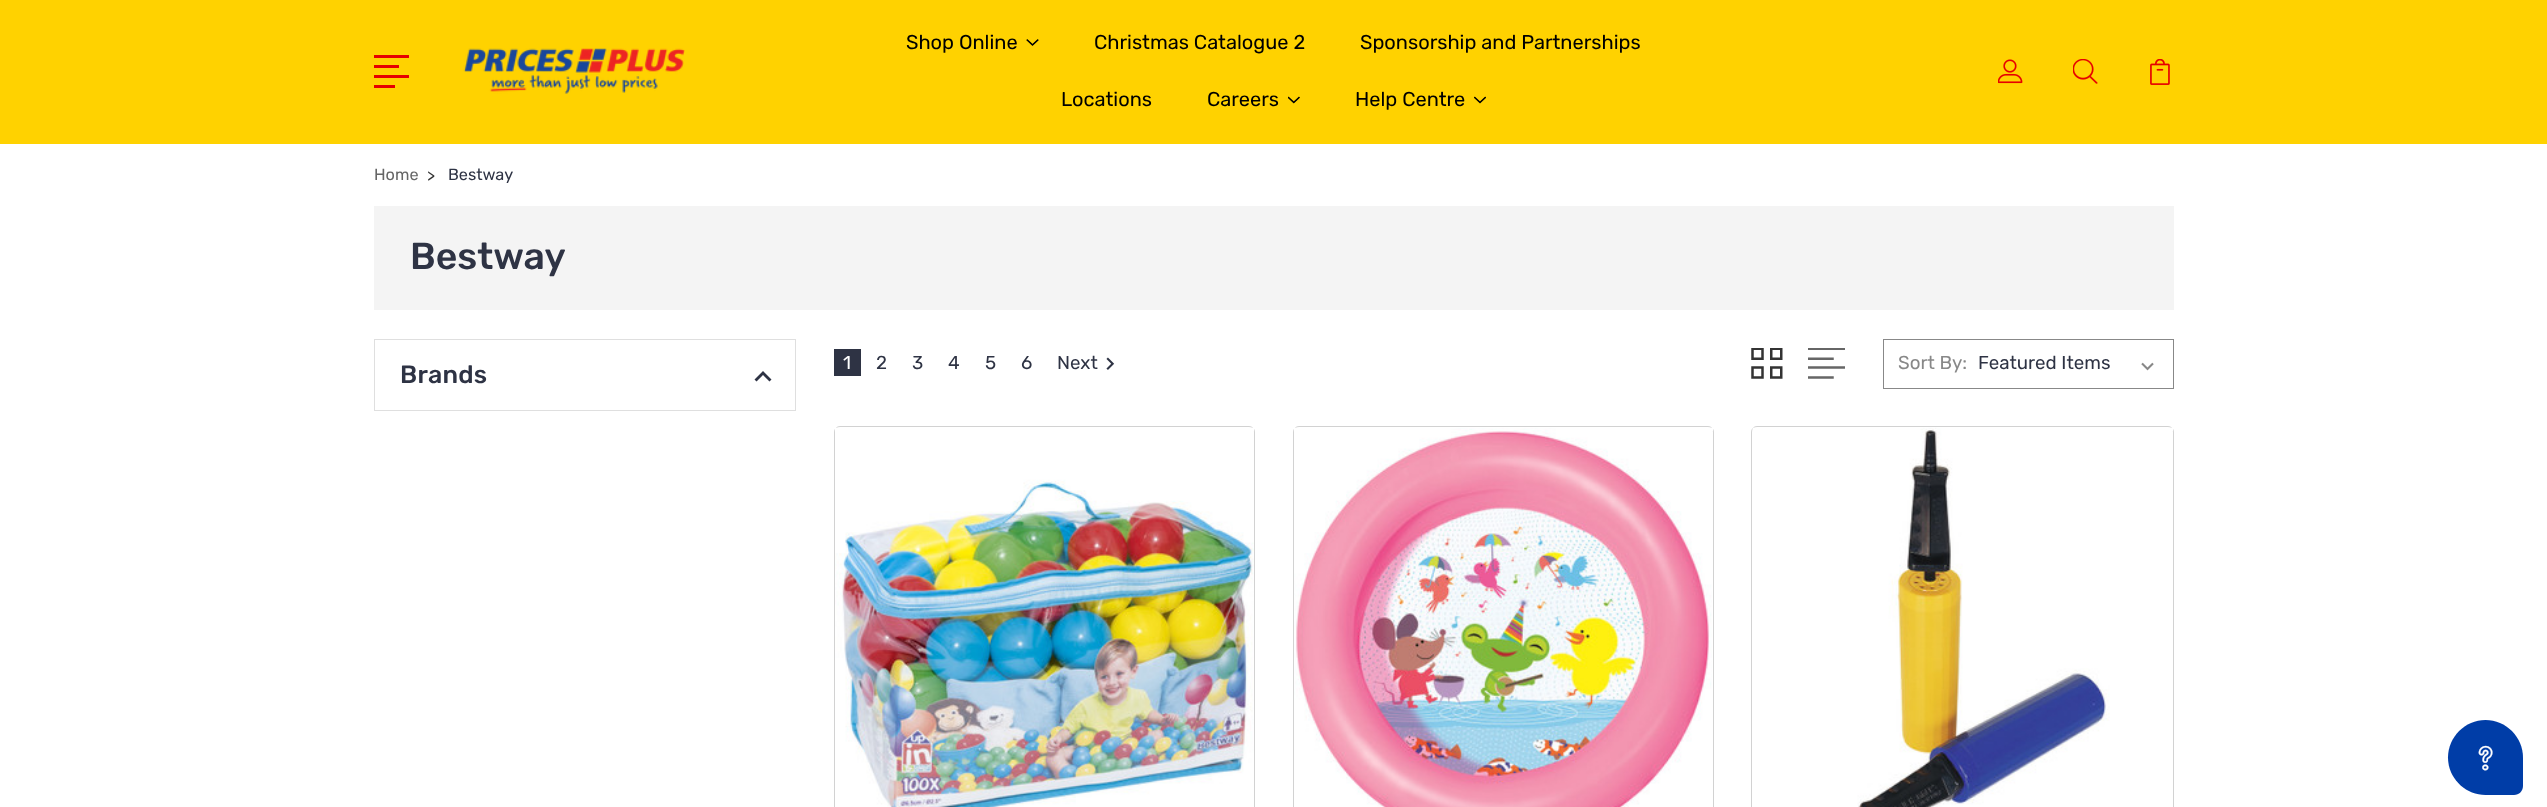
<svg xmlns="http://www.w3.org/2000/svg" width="2547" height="807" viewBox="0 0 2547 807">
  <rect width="100%" height="100%" fill="rgb(255,255,255)"/>
  <rect x="0" y="0" width="2547" height="144" fill="rgb(255,210,0)"/>
  <rect x="374" y="55" width="35" height="3" fill="rgb(230,0,0)"/>
  <rect x="374" y="65" width="25" height="3" fill="rgb(230,0,0)"/>
  <rect x="374" y="75" width="35" height="3" fill="rgb(230,0,0)"/>
  <rect x="374" y="85" width="21" height="3" fill="rgb(230,0,0)"/>
  <image x="463" y="48" width="222" height="46" href="pic1.png"/>
  <text x="906" y="49" font-family="Rubik" font-size="20" fill="rgb(0,0,0)">Shop Online</text>
  <image x="1026" y="39" width="13" height="7" href="pic2.png"/>
  <g font-family="Rubik" font-size="20" fill="rgb(0,0,0)">
    <text x="1094" y="49">Christmas Catalogue 2</text>
    <text x="1360" y="49">Sponsorship and Partnerships</text>
    <text x="1061" y="106">Locations</text>
    <text x="1207" y="106">Careers</text>
  </g>
  <image x="1288" y="96" width="12" height="8" href="pic3.png"/>
  <text x="1355" y="106" font-family="Rubik" font-size="20" fill="rgb(0,0,0)">Help Centre</text>
  <image x="1474" y="96" width="12" height="8" href="pic4.png"/>
  <image x="1998" y="59" width="25" height="25" href="pic5.png"/>
  <image x="2073" y="59" width="25" height="25" href="pic6.png"/>
  <image x="2150" y="59" width="20" height="26" href="pic7.png"/>
  <text x="374" y="180" font-family="Rubik" font-size="16.25" fill="rgb(102,102,102)">Home</text>
  <text x="427" y="181" font-family="Rubik" font-size="16.25" fill="rgb(51,51,51)">&gt;</text>
  <text x="448" y="180" font-family="Rubik" font-size="16.25" fill="rgb(46,51,68)">Bestway</text>
  <rect x="374" y="206" width="1800" height="104" fill="rgb(244,244,244)"/>
  <text x="410" y="269" font-family="Rubik" font-size="37.5" font-weight="500" fill="rgb(46,51,68)">Bestway</text>
  <rect x="374.5" y="339.5" width="421" height="71" fill="none" stroke="rgb(223,223,223)"/>
  <text x="400" y="383" font-family="Rubik" font-size="25" font-weight="500" letter-spacing="0.25" fill="rgb(46,51,68)">Brands</text>
  <path d="M756.5 381.5L763 375L769.5 381.5L771.5 379.5L763 371L754.5 379.5Z" fill="rgb(46,51,68)"/>
  <rect x="834" y="349" width="27" height="27" fill="rgb(46,51,68)"/>
  <text x="843" y="369" font-family="Rubik" font-size="18.75" fill="rgb(255,255,255)">1</text>
  <g font-family="Rubik" font-size="18.75" fill="rgb(46,51,68)">
    <text x="876" y="369">2</text>
    <text x="912" y="369">3</text>
    <text x="948" y="369">4</text>
    <text x="985" y="369">5</text>
    <text x="1021" y="369">6</text>
    <text x="1057" y="369">Next</text>
  </g>
  <image x="1106" y="357" width="9" height="13" href="pic8.png"/>
  <image x="1751" y="348" width="32" height="31" href="pic9.png"/>
  <image x="1808" y="348" width="37" height="31" href="pic10.png"/>
  <rect x="1883.5" y="339.5" width="290" height="49" fill="none" stroke="rgb(136,136,136)"/>
  <text x="1898" y="369" font-family="Rubik" font-size="18.75" fill="rgb(136,136,136)">Sort By:</text>
  <image x="2141" y="362" width="13" height="9" href="pic11.png"/>
  <text x="1978" y="369" font-family="Rubik" font-size="18.75" fill="rgb(46,51,68)">Featured Items</text>
  <rect x="834.5" y="426.5" width="420" height="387" rx="5.5" fill="none" stroke="rgb(210,210,210)"/>
  <rect x="1253" y="428" width="1" height="3" fill="rgb(255,255,255)"/>
  <image x="835" y="427" width="419" height="380" href="pic12.png"/>
  <rect x="1293.5" y="426.5" width="420" height="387" rx="5.5" fill="none" stroke="rgb(210,210,210)"/>
  <rect x="1712" y="428" width="1" height="3" fill="rgb(255,255,255)"/>
  <image x="1294" y="427" width="418" height="380" href="pic13.png"/>
  <rect x="1751.5" y="426.5" width="422" height="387" rx="5.5" fill="none" stroke="rgb(210,210,210)"/>
  <rect x="2172" y="428" width="1" height="3" fill="rgb(255,255,255)"/>
  <image x="1752" y="427" width="420" height="380" href="pic14.png"/>
  <path d="M2485.5 720C2506 720 2523 737 2523 757.5V786C2523 791 2519 795 2514 795H2485.5C2465 795 2448 778 2448 757.5C2448 737 2465 720 2485.5 720Z" fill="rgb(0,61,167)"/>
  <image x="2478" y="745" width="15" height="26" href="pic15.png"/>
</svg>
